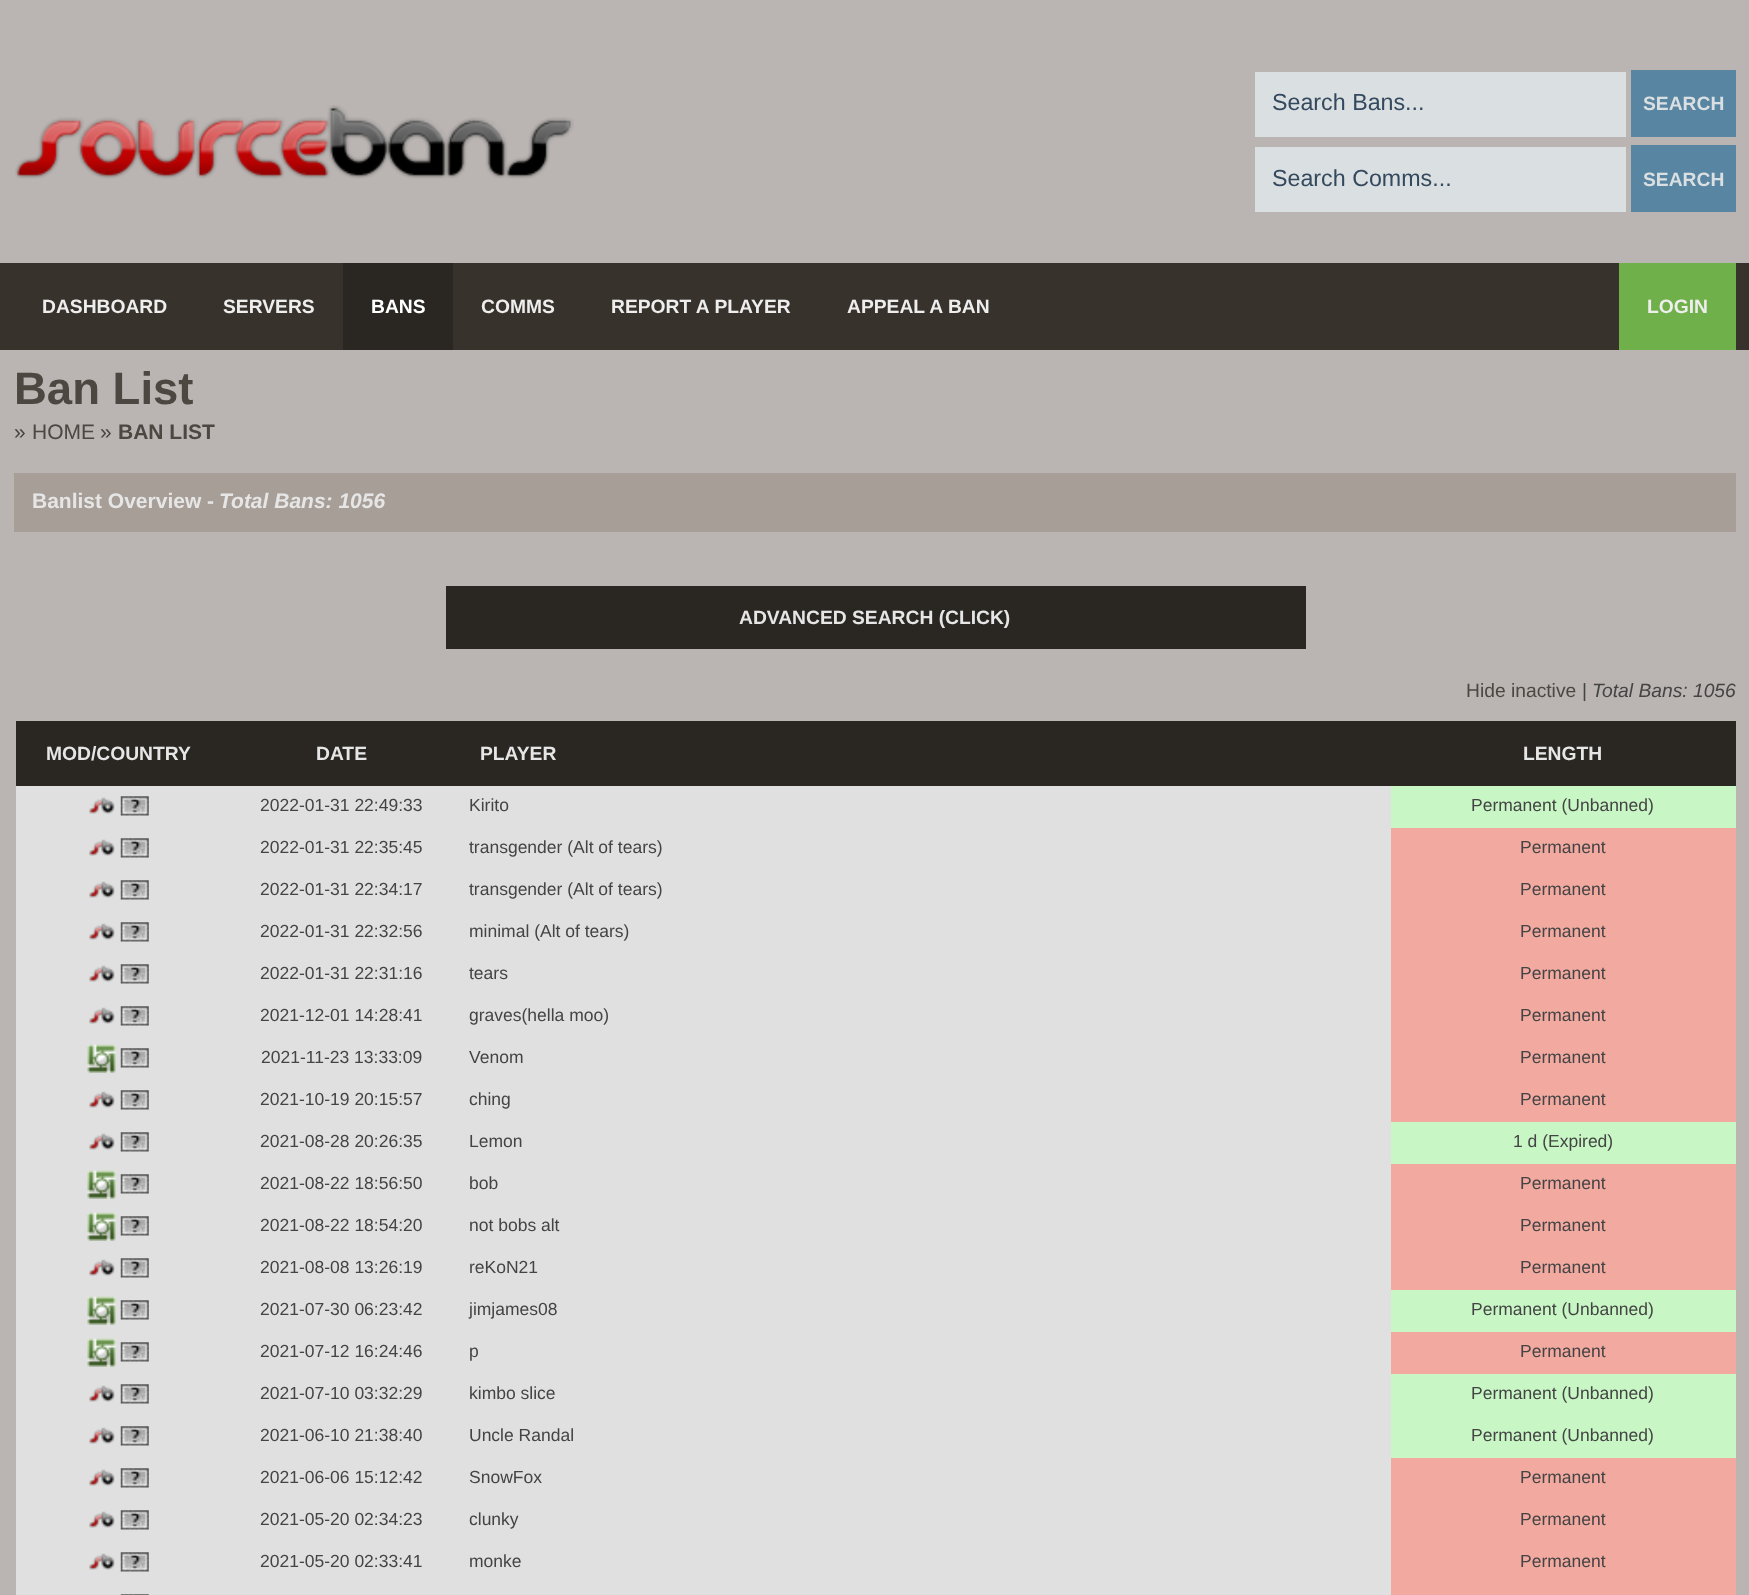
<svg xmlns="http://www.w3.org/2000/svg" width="1749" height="1595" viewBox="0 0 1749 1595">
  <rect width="100%" height="100%" fill="rgb(186,181,178)"/>
  <image x="15" y="105" width="559" height="74" href="pic1.png"/>
  <rect x="1255" y="72" width="371" height="65" fill="rgb(218,223,225)"/>
  <text x="1272" y="110" font-family="Liberation Sans" font-size="23.25" fill="rgb(52,73,94)">Search Bans...</text>
  <rect x="1631" y="70" width="105" height="67" fill="rgb(88,133,162)"/>
  <text x="1643" y="110" font-family="Liberation Sans" font-size="19.25" font-weight="bold" fill="rgb(218,223,225)">SEARCH</text>
  <rect x="1255" y="147" width="371" height="65" fill="rgb(218,223,225)"/>
  <text x="1272" y="186" font-family="Liberation Sans" font-size="23.25" fill="rgb(52,73,94)">Search Comms...</text>
  <rect x="1631" y="145" width="105" height="67" fill="rgb(88,133,162)"/>
  <text x="1643" y="186" font-family="Liberation Sans" font-size="19.25" font-weight="bold" fill="rgb(218,223,225)">SEARCH</text>
  <rect x="0" y="263" width="1749" height="87" fill="rgb(56,50,44)"/>
  <g font-family="Liberation Sans" font-size="19.25" font-weight="bold" fill="rgb(238,238,238)">
    <text x="42" y="313">DASHBOARD</text>
    <text x="223" y="313">SERVERS</text>
  </g>
  <rect x="343" y="263" width="110" height="87" fill="rgb(42,39,35)"/>
  <text x="371" y="313" font-family="Liberation Sans" font-size="19.25" font-weight="bold" fill="rgb(255,255,255)">BANS</text>
  <g font-family="Liberation Sans" font-size="19.25" font-weight="bold" fill="rgb(238,238,238)">
    <text x="481" y="313">COMMS</text>
    <text x="611" y="313">REPORT A PLAYER</text>
    <text x="847" y="313">APPEAL A BAN</text>
  </g>
  <rect x="1619" y="263" width="117" height="87" fill="rgb(112,176,74)"/>
  <text x="1647" y="313" font-family="Liberation Sans" font-size="19.25" font-weight="bold" fill="rgb(238,238,238)">LOGIN</text>
  <text x="14" y="404" font-family="Liberation Sans" font-size="45.5" font-weight="bold" fill="rgb(77,71,66)">Ban List</text>
  <text x="14" y="439" font-family="Liberation Sans" font-size="21" fill="rgb(68,68,68)">»</text>
  <text x="32" y="439" font-family="Liberation Sans" font-size="21" fill="rgb(77,71,66)">HOME</text>
  <text x="100" y="439" font-family="Liberation Sans" font-size="21" fill="rgb(68,68,68)">»</text>
  <text x="118" y="439" font-family="Liberation Sans" font-size="21" font-weight="bold" fill="rgb(77,71,66)">BAN LIST</text>
  <rect x="14" y="473" width="1722" height="59" fill="rgb(166,158,151)"/>
  <text x="32" y="508" font-family="Liberation Sans" font-size="21" font-weight="bold" fill="rgb(230,230,230)">Banlist Overview -</text>
  <text x="219" y="508" font-family="Liberation Sans" font-size="21" font-weight="bold" font-style="italic" fill="rgb(230,230,230)">Total Bans: 1056</text>
  <rect x="446" y="586" width="860" height="63" fill="rgb(42,39,35)"/>
  <text x="739" y="624" font-family="Liberation Sans" font-size="19.25" font-weight="bold" fill="rgb(230,230,230)">ADVANCED SEARCH (CLICK)</text>
  <text x="1466" y="697" font-family="Liberation Sans" font-size="19.25" fill="rgb(77,71,66)">Hide inactive</text>
  <text x="1582" y="697" font-family="Liberation Sans" font-size="19.25" fill="rgb(68,68,68)">|</text>
  <text x="1592" y="697" font-family="Liberation Sans" font-size="19.25" font-style="italic" fill="rgb(68,68,68)">Total Bans: 1056</text>
  <rect x="16" y="721" width="1720" height="65" fill="rgb(42,39,35)"/>
  <g font-family="Liberation Sans" font-size="19.25" font-weight="bold" fill="rgb(230,230,230)">
    <text x="46" y="760">MOD/COUNTRY</text>
    <text x="316" y="760">DATE</text>
    <text x="480" y="760">PLAYER</text>
    <text x="1523" y="760">LENGTH</text>
  </g>
  <rect x="16" y="786" width="1375" height="42" fill="rgb(224,224,224)"/>
  <image x="89" y="797" width="26" height="17" href="pic2.png"/>
  <image x="120" y="796" width="29" height="20" href="pic3.png"/>
  <g font-family="Liberation Sans" font-size="17.5" fill="rgb(68,68,68)">
    <text x="260" y="811">2022-01-31 22:49:33</text>
    <text x="469" y="811">Kirito</text>
  </g>
  <rect x="1391" y="786" width="345" height="42" fill="rgb(200,247,197)"/>
  <text x="1471" y="811" font-family="Liberation Sans" font-size="17.5" fill="rgb(68,68,68)">Permanent (Unbanned)</text>
  <rect x="16" y="828" width="1375" height="42" fill="rgb(224,224,224)"/>
  <image x="89" y="839" width="26" height="17" href="pic2.png"/>
  <image x="120" y="838" width="29" height="20" href="pic3.png"/>
  <g font-family="Liberation Sans" font-size="17.5" fill="rgb(68,68,68)">
    <text x="260" y="853">2022-01-31 22:35:45</text>
    <text x="469" y="853">transgender (Alt of tears)</text>
  </g>
  <rect x="1391" y="828" width="345" height="294" fill="rgb(241,169,160)"/>
  <text x="1520" y="853" font-family="Liberation Sans" font-size="17.5" fill="rgb(68,68,68)">Permanent</text>
  <rect x="16" y="870" width="1375" height="42" fill="rgb(224,224,224)"/>
  <image x="89" y="881" width="26" height="17" href="pic2.png"/>
  <image x="120" y="880" width="29" height="20" href="pic3.png"/>
  <g font-family="Liberation Sans" font-size="17.5" fill="rgb(68,68,68)">
    <text x="260" y="895">2022-01-31 22:34:17</text>
    <text x="469" y="895">transgender (Alt of tears)</text>
    <text x="1520" y="895">Permanent</text>
  </g>
  <rect x="16" y="912" width="1375" height="42" fill="rgb(224,224,224)"/>
  <image x="89" y="923" width="26" height="17" href="pic2.png"/>
  <image x="120" y="922" width="29" height="20" href="pic3.png"/>
  <g font-family="Liberation Sans" font-size="17.5" fill="rgb(68,68,68)">
    <text x="260" y="937">2022-01-31 22:32:56</text>
    <text x="469" y="937">minimal (Alt of tears)</text>
    <text x="1520" y="937">Permanent</text>
  </g>
  <rect x="16" y="954" width="1375" height="42" fill="rgb(224,224,224)"/>
  <image x="89" y="965" width="26" height="17" href="pic2.png"/>
  <image x="120" y="964" width="29" height="20" href="pic3.png"/>
  <g font-family="Liberation Sans" font-size="17.5" fill="rgb(68,68,68)">
    <text x="260" y="979">2022-01-31 22:31:16</text>
    <text x="469" y="979">tears</text>
    <text x="1520" y="979">Permanent</text>
  </g>
  <rect x="16" y="996" width="1375" height="42" fill="rgb(224,224,224)"/>
  <image x="89" y="1007" width="26" height="17" href="pic2.png"/>
  <image x="120" y="1006" width="29" height="20" href="pic3.png"/>
  <g font-family="Liberation Sans" font-size="17.5" fill="rgb(68,68,68)">
    <text x="260" y="1021">2021-12-01 14:28:41</text>
    <text x="469" y="1021">graves(hella moo)</text>
    <text x="1520" y="1021">Permanent</text>
  </g>
  <rect x="16" y="1038" width="1375" height="42" fill="rgb(224,224,224)"/>
  <image x="87" y="1044" width="29" height="29" href="pic4.png"/>
  <image x="120" y="1048" width="29" height="20" href="pic3.png"/>
  <g font-family="Liberation Sans" font-size="17.5" fill="rgb(68,68,68)">
    <text x="261" y="1063">2021-11-23 13:33:09</text>
    <text x="469" y="1063">Venom</text>
    <text x="1520" y="1063">Permanent</text>
  </g>
  <rect x="16" y="1080" width="1375" height="42" fill="rgb(224,224,224)"/>
  <image x="89" y="1091" width="26" height="17" href="pic2.png"/>
  <image x="120" y="1090" width="29" height="20" href="pic3.png"/>
  <g font-family="Liberation Sans" font-size="17.5" fill="rgb(68,68,68)">
    <text x="260" y="1105">2021-10-19 20:15:57</text>
    <text x="469" y="1105">ching</text>
    <text x="1520" y="1105">Permanent</text>
  </g>
  <rect x="16" y="1122" width="1375" height="42" fill="rgb(224,224,224)"/>
  <image x="89" y="1133" width="26" height="17" href="pic2.png"/>
  <image x="120" y="1132" width="29" height="20" href="pic3.png"/>
  <g font-family="Liberation Sans" font-size="17.5" fill="rgb(68,68,68)">
    <text x="260" y="1147">2021-08-28 20:26:35</text>
    <text x="469" y="1147">Lemon</text>
  </g>
  <rect x="1391" y="1122" width="345" height="42" fill="rgb(200,247,197)"/>
  <text x="1513" y="1147" font-family="Liberation Sans" font-size="17.5" fill="rgb(68,68,68)">1 d (Expired)</text>
  <rect x="16" y="1164" width="1375" height="42" fill="rgb(224,224,224)"/>
  <image x="87" y="1170" width="29" height="29" href="pic4.png"/>
  <image x="120" y="1174" width="29" height="20" href="pic3.png"/>
  <g font-family="Liberation Sans" font-size="17.5" fill="rgb(68,68,68)">
    <text x="260" y="1189">2021-08-22 18:56:50</text>
    <text x="469" y="1189">bob</text>
  </g>
  <rect x="1391" y="1164" width="345" height="126" fill="rgb(241,169,160)"/>
  <text x="1520" y="1189" font-family="Liberation Sans" font-size="17.5" fill="rgb(68,68,68)">Permanent</text>
  <rect x="16" y="1206" width="1375" height="42" fill="rgb(224,224,224)"/>
  <image x="87" y="1212" width="29" height="29" href="pic4.png"/>
  <image x="120" y="1216" width="29" height="20" href="pic3.png"/>
  <g font-family="Liberation Sans" font-size="17.5" fill="rgb(68,68,68)">
    <text x="260" y="1231">2021-08-22 18:54:20</text>
    <text x="469" y="1231">not bobs alt</text>
    <text x="1520" y="1231">Permanent</text>
  </g>
  <rect x="16" y="1248" width="1375" height="42" fill="rgb(224,224,224)"/>
  <image x="89" y="1259" width="26" height="17" href="pic2.png"/>
  <image x="120" y="1258" width="29" height="20" href="pic3.png"/>
  <g font-family="Liberation Sans" font-size="17.5" fill="rgb(68,68,68)">
    <text x="260" y="1273">2021-08-08 13:26:19</text>
    <text x="469" y="1273">reKoN21</text>
    <text x="1520" y="1273">Permanent</text>
  </g>
  <rect x="16" y="1290" width="1375" height="42" fill="rgb(224,224,224)"/>
  <image x="87" y="1296" width="29" height="29" href="pic4.png"/>
  <image x="120" y="1300" width="29" height="20" href="pic3.png"/>
  <g font-family="Liberation Sans" font-size="17.5" fill="rgb(68,68,68)">
    <text x="260" y="1315">2021-07-30 06:23:42</text>
    <text x="469" y="1315">jimjames08</text>
  </g>
  <rect x="1391" y="1290" width="345" height="42" fill="rgb(200,247,197)"/>
  <text x="1471" y="1315" font-family="Liberation Sans" font-size="17.5" fill="rgb(68,68,68)">Permanent (Unbanned)</text>
  <rect x="16" y="1332" width="1375" height="42" fill="rgb(224,224,224)"/>
  <image x="87" y="1338" width="29" height="29" href="pic4.png"/>
  <image x="120" y="1342" width="29" height="20" href="pic3.png"/>
  <g font-family="Liberation Sans" font-size="17.5" fill="rgb(68,68,68)">
    <text x="260" y="1357">2021-07-12 16:24:46</text>
    <text x="469" y="1357">p</text>
  </g>
  <rect x="1391" y="1332" width="345" height="42" fill="rgb(241,169,160)"/>
  <text x="1520" y="1357" font-family="Liberation Sans" font-size="17.5" fill="rgb(68,68,68)">Permanent</text>
  <rect x="16" y="1374" width="1375" height="42" fill="rgb(224,224,224)"/>
  <image x="89" y="1385" width="26" height="17" href="pic2.png"/>
  <image x="120" y="1384" width="29" height="20" href="pic3.png"/>
  <g font-family="Liberation Sans" font-size="17.5" fill="rgb(68,68,68)">
    <text x="260" y="1399">2021-07-10 03:32:29</text>
    <text x="469" y="1399">kimbo slice</text>
  </g>
  <rect x="1391" y="1374" width="345" height="84" fill="rgb(200,247,197)"/>
  <text x="1471" y="1399" font-family="Liberation Sans" font-size="17.5" fill="rgb(68,68,68)">Permanent (Unbanned)</text>
  <rect x="16" y="1416" width="1375" height="42" fill="rgb(224,224,224)"/>
  <image x="89" y="1427" width="26" height="17" href="pic2.png"/>
  <image x="120" y="1426" width="29" height="20" href="pic3.png"/>
  <g font-family="Liberation Sans" font-size="17.5" fill="rgb(68,68,68)">
    <text x="260" y="1441">2021-06-10 21:38:40</text>
    <text x="469" y="1441">Uncle Randal</text>
    <text x="1471" y="1441">Permanent (Unbanned)</text>
  </g>
  <rect x="16" y="1458" width="1375" height="42" fill="rgb(224,224,224)"/>
  <image x="89" y="1469" width="26" height="17" href="pic2.png"/>
  <image x="120" y="1468" width="29" height="20" href="pic3.png"/>
  <g font-family="Liberation Sans" font-size="17.5" fill="rgb(68,68,68)">
    <text x="260" y="1483">2021-06-06 15:12:42</text>
    <text x="469" y="1483">SnowFox</text>
  </g>
  <rect x="1391" y="1458" width="345" height="137" fill="rgb(241,169,160)"/>
  <text x="1520" y="1483" font-family="Liberation Sans" font-size="17.5" fill="rgb(68,68,68)">Permanent</text>
  <rect x="16" y="1500" width="1375" height="42" fill="rgb(224,224,224)"/>
  <image x="89" y="1511" width="26" height="17" href="pic2.png"/>
  <image x="120" y="1510" width="29" height="20" href="pic3.png"/>
  <g font-family="Liberation Sans" font-size="17.5" fill="rgb(68,68,68)">
    <text x="260" y="1525">2021-05-20 02:34:23</text>
    <text x="469" y="1525">clunky</text>
    <text x="1520" y="1525">Permanent</text>
  </g>
  <rect x="16" y="1542" width="1375" height="42" fill="rgb(224,224,224)"/>
  <image x="89" y="1553" width="26" height="17" href="pic2.png"/>
  <image x="120" y="1552" width="29" height="20" href="pic3.png"/>
  <g font-family="Liberation Sans" font-size="17.5" fill="rgb(68,68,68)">
    <text x="260" y="1567">2021-05-20 02:33:41</text>
    <text x="469" y="1567">monke</text>
    <text x="1520" y="1567">Permanent</text>
  </g>
  <rect x="16" y="1584" width="1375" height="11" fill="rgb(224,224,224)"/>
  <image x="120" y="1594" width="29" height="1" href="pic5.png"/>
</svg>
